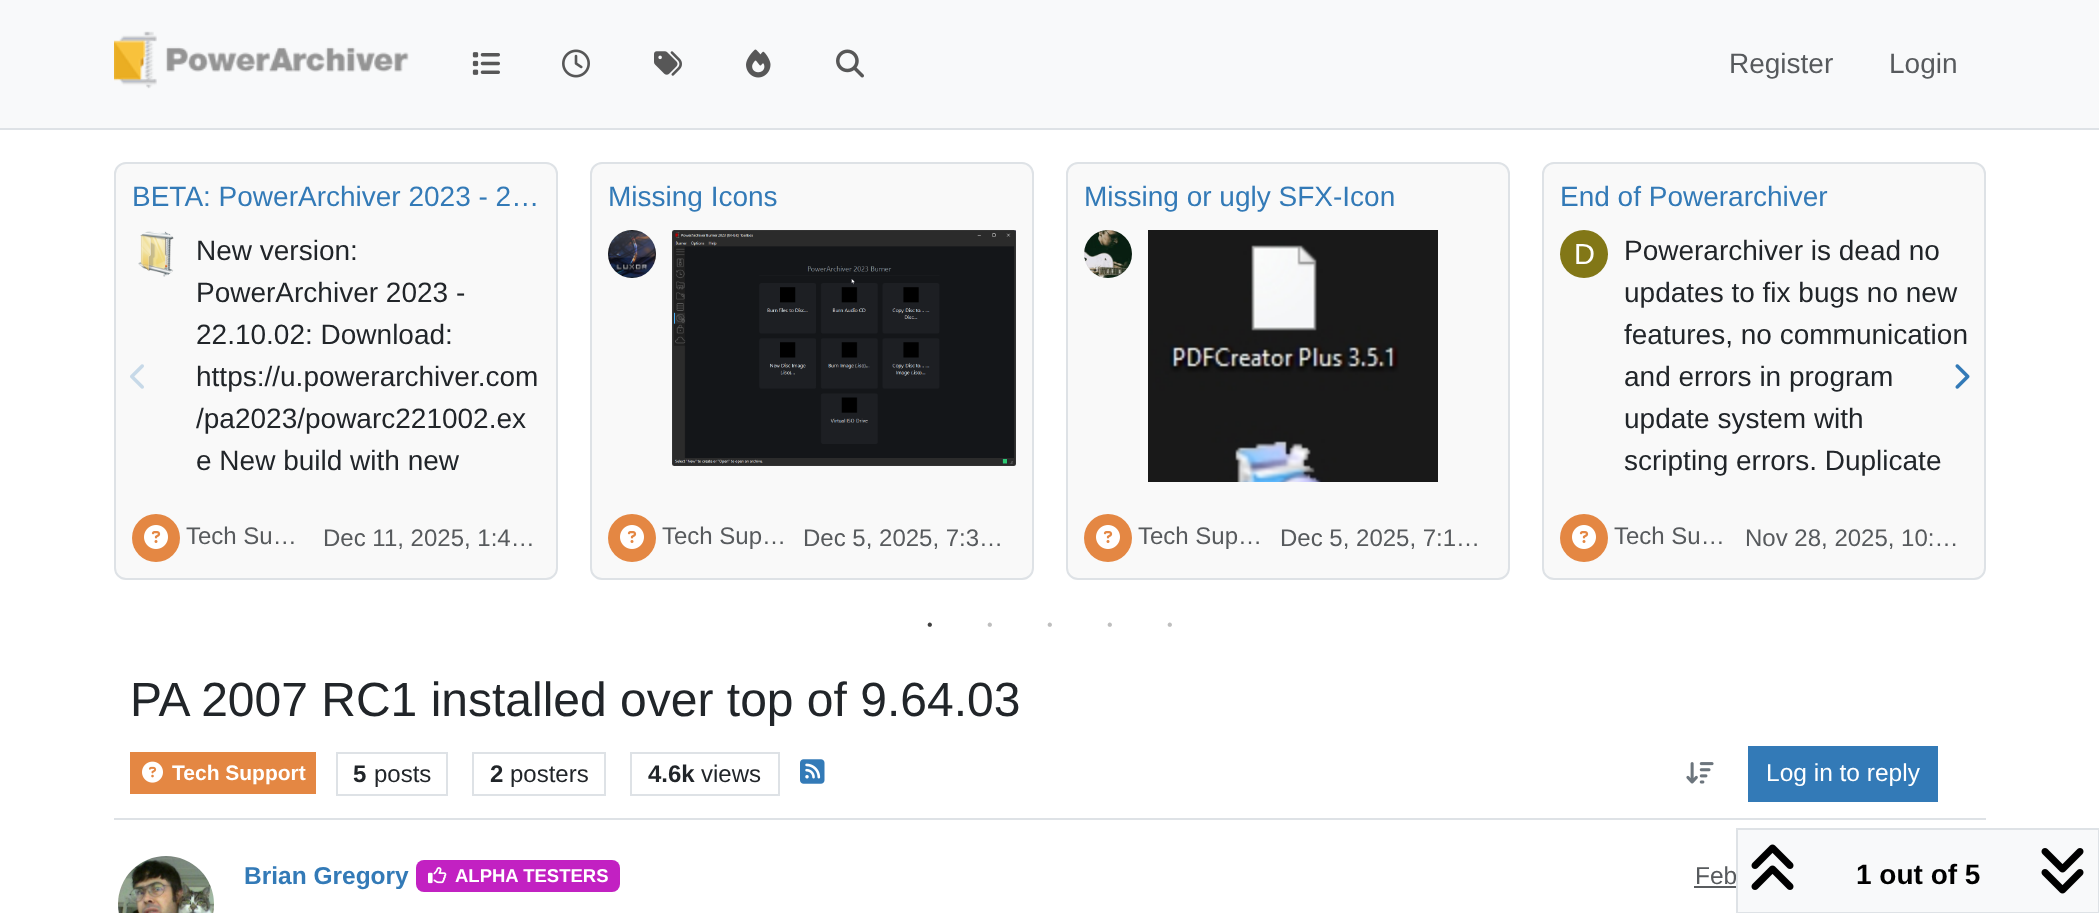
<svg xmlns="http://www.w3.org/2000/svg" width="2099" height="913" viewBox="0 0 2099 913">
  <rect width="100%" height="100%" fill="rgb(255,255,255)"/>
  <rect x="0" y="0" width="2099" height="128" fill="rgb(248,249,250)"/>
  <rect x="0" y="128" width="2099" height="2" fill="rgb(222,226,230)"/>
  <image x="114" y="31" width="295" height="58" href="pic1.png"/>
  <image x="472" y="52" width="28" height="23" href="pic2.png"/>
  <image x="562" y="49" width="28" height="29" href="pic3.png"/>
  <image x="654" y="51" width="28" height="25" href="pic4.png"/>
  <image x="746" y="49" width="25" height="29" href="pic5.png"/>
  <image x="836" y="49" width="28" height="29" href="pic6.png"/>
  <g font-family="Liberation Sans" font-size="28" fill="rgb(87,90,93)">
    <text x="1729" y="73">Register</text>
    <text x="1889" y="73">Login</text>
  </g>
  <rect x="115" y="163" width="442" height="416" rx="11" fill="rgb(249,249,249)" stroke="rgb(222,226,230)" stroke-width="2"/>
  <text x="132" y="206" font-family="Liberation Sans" font-size="28" fill="rgb(51,122,183)">BETA: PowerArchiver 2023 - 2…</text>
  <image x="138" y="231" width="36" height="46" href="pic7.png"/>
  <g font-family="Liberation Sans" font-size="28" fill="rgb(33,37,41)">
    <text>
      <tspan x="196" y="260">New version:</tspan>
      <tspan x="196" y="302">PowerArchiver 2023 -</tspan>
      <tspan x="196" y="344">22.10.02: Download:</tspan>
      <tspan x="196" y="386">https://u.powerarchiver.com</tspan>
      <tspan x="196" y="428">/pa2023/powarc221002.ex</tspan>
      <tspan x="196" y="470">e New build with new</tspan>
    </text>
  </g>
  <circle cx="156" cy="538" r="24" fill="rgb(228,135,67)"/>
  <image x="144" y="525" width="24" height="24" href="pic8.png"/>
  <g font-family="Liberation Sans" font-size="24" fill="rgb(87,90,93)">
    <text x="186" y="544">Tech Su…</text>
    <text x="323" y="546">Dec 11, 2025, 1:4…</text>
  </g>
  <rect x="591" y="163" width="442" height="416" rx="11" fill="rgb(249,249,249)" stroke="rgb(222,226,230)" stroke-width="2"/>
  <text x="608" y="206" font-family="Liberation Sans" font-size="28" fill="rgb(51,122,183)">Missing Icons</text>
  <image x="608" y="230" width="48" height="48" href="pic9.png"/>
  <image x="672" y="230" width="344" height="236" href="pic10.png"/>
  <circle cx="632" cy="538" r="24" fill="rgb(228,135,67)"/>
  <image x="620" y="525" width="24" height="24" href="pic8.png"/>
  <g font-family="Liberation Sans" font-size="24" fill="rgb(87,90,93)">
    <text x="662" y="544">Tech Sup…</text>
    <text x="803" y="546">Dec 5, 2025, 7:3…</text>
  </g>
  <rect x="1067" y="163" width="442" height="416" rx="11" fill="rgb(249,249,249)" stroke="rgb(222,226,230)" stroke-width="2"/>
  <text x="1084" y="206" font-family="Liberation Sans" font-size="28" fill="rgb(51,122,183)">Missing or ugly SFX-Icon</text>
  <image x="1084" y="230" width="48" height="48" href="pic11.png"/>
  <image x="1148" y="230" width="290" height="252" href="pic12.png"/>
  <circle cx="1108" cy="538" r="24" fill="rgb(228,135,67)"/>
  <image x="1096" y="525" width="24" height="24" href="pic8.png"/>
  <g font-family="Liberation Sans" font-size="24" fill="rgb(87,90,93)">
    <text x="1138" y="544">Tech Sup…</text>
    <text x="1280" y="546">Dec 5, 2025, 7:1…</text>
  </g>
  <rect x="1543" y="163" width="442" height="416" rx="11" fill="rgb(249,249,249)" stroke="rgb(222,226,230)" stroke-width="2"/>
  <text x="1560" y="206" font-family="Liberation Sans" font-size="28" fill="rgb(51,122,183)">End of Powerarchiver</text>
  <circle cx="1584" cy="254" r="24" fill="rgb(130,119,23)"/>
  <text x="1574" y="264" font-family="Liberation Sans" font-size="29" fill="rgb(255,255,255)">D</text>
  <g font-family="Liberation Sans" font-size="28" fill="rgb(33,37,41)">
    <text>
      <tspan x="1624" y="260">Powerarchiver is dead no</tspan>
      <tspan x="1624" y="302">updates to fix bugs no new</tspan>
      <tspan x="1624" y="344">features, no communication</tspan>
      <tspan x="1624" y="386">and errors in program</tspan>
      <tspan x="1624" y="428">update system with</tspan>
      <tspan x="1624" y="470">scripting errors. Duplicate</tspan>
    </text>
  </g>
  <circle cx="1584" cy="538" r="24" fill="rgb(228,135,67)"/>
  <image x="1572" y="525" width="24" height="24" href="pic8.png"/>
  <g font-family="Liberation Sans" font-size="24" fill="rgb(87,90,93)">
    <text x="1614" y="544">Tech Su…</text>
    <text x="1745" y="546">Nov 28, 2025, 10:…</text>
  </g>
  <image x="130" y="364" width="14" height="25" href="pic13.png"/>
  <image x="1955" y="364" width="15" height="25" href="pic14.png"/>
  <text x="927" y="630" font-family="Liberation Sans" font-size="16" fill="rgb(64,64,64)">•</text>
  <g font-family="Liberation Sans" font-size="16" fill="rgb(191,191,191)">
    <text x="987" y="630">•</text>
    <text x="1047" y="630">•</text>
    <text x="1107" y="630">•</text>
    <text x="1167" y="630">•</text>
  </g>
  <rect x="114" y="818" width="1872" height="2" fill="rgb(222,226,230)"/>
  <text x="130" y="716" font-family="Liberation Sans" font-size="48" fill="rgb(33,37,41)">PA 2007 RC1 installed over top of 9.64.03</text>
  <rect x="130" y="752" width="186" height="42" fill="rgb(228,135,67)"/>
  <image x="142" y="761" width="21" height="22" href="pic15.png"/>
  <text x="172" y="780" font-family="Liberation Sans" font-size="21" font-weight="bold" fill="rgb(255,255,255)">Tech Support</text>
  <rect x="337" y="753" width="110" height="42" fill="none" stroke="rgb(222,226,230)" stroke-width="2"/>
  <text x="353" y="782" font-family="Liberation Sans" font-size="24" font-weight="bold" fill="rgb(33,37,41)">5</text>
  <text x="374" y="782" font-family="Liberation Sans" font-size="24" fill="rgb(33,37,41)">posts</text>
  <rect x="473" y="753" width="132" height="42" fill="none" stroke="rgb(222,226,230)" stroke-width="2"/>
  <text x="490" y="782" font-family="Liberation Sans" font-size="24" font-weight="bold" fill="rgb(33,37,41)">2</text>
  <text x="510" y="782" font-family="Liberation Sans" font-size="24" fill="rgb(33,37,41)">posters</text>
  <rect x="631" y="753" width="148" height="42" fill="none" stroke="rgb(222,226,230)" stroke-width="2"/>
  <text x="648" y="782" font-family="Liberation Sans" font-size="24" font-weight="bold" fill="rgb(33,37,41)">4.6k</text>
  <text x="701" y="782" font-family="Liberation Sans" font-size="24" fill="rgb(33,37,41)">views</text>
  <image x="800" y="759" width="25" height="25" href="pic16.png"/>
  <image x="1686" y="762" width="28" height="22" href="pic17.png"/>
  <rect x="1748" y="746" width="190" height="56" fill="rgb(51,122,183)"/>
  <text x="1766" y="781" font-family="Liberation Sans" font-size="24.5" fill="rgb(255,255,255)">Log in to reply</text>
  <image x="118" y="856" width="96" height="57" href="pic18.png"/>
  <text x="244" y="884" font-family="Liberation Sans" font-size="24.5" font-weight="bold" fill="rgb(51,122,183)">Brian Gregory</text>
  <rect x="416" y="860" width="204" height="32" rx="8" fill="rgb(194,33,194)"/>
  <image x="428" y="867" width="19" height="17" href="pic19.png"/>
  <text x="455" y="882" font-family="Liberation Sans" font-size="18.5" font-weight="bold" fill="rgb(255,255,255)">ALPHA TESTERS</text>
  <text x="1695" y="884" font-family="Liberation Sans" font-size="24.5" fill="rgb(87,90,93)">Feb</text>
  <rect x="1694" y="886" width="42" height="2" fill="rgb(89,92,95)"/>
  <rect x="1737" y="829" width="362" height="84" fill="rgb(248,249,250)" stroke="rgb(222,226,230)" stroke-width="2"/>
  <image x="1751" y="844" width="43" height="46" href="pic20.png"/>
  <text x="1856" y="884" font-family="Liberation Sans" font-size="28" font-weight="bold" fill="rgb(0,0,0)">1 out of 5</text>
  <image x="2041" y="848" width="43" height="46" href="pic21.png"/>
</svg>
